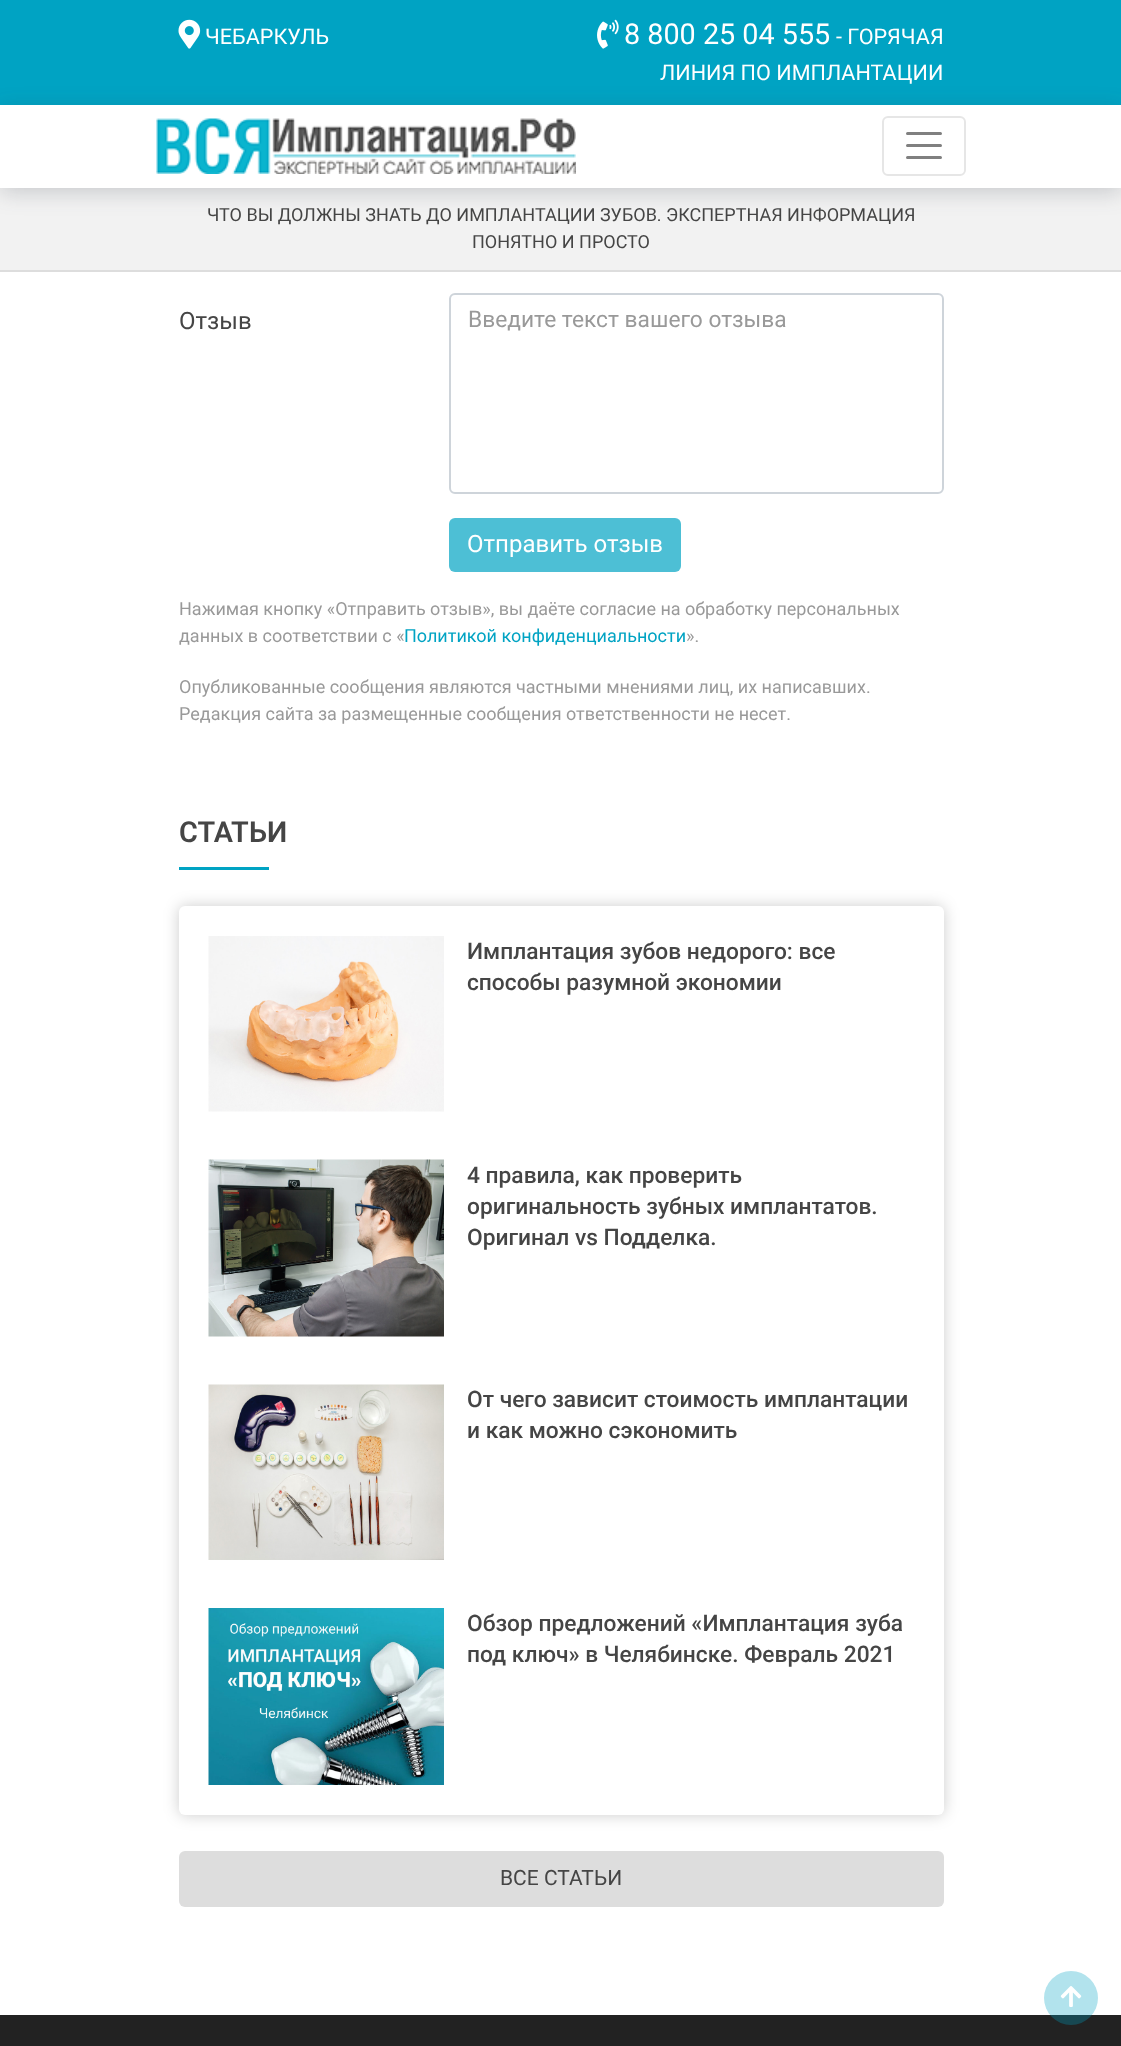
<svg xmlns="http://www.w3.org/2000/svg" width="1121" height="2046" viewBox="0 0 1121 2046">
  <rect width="100%" height="100%" fill="rgb(255,255,255)"/>
  <rect x="0" y="0" width="1121" height="105" fill="rgb(0,163,195)"/>
  <image x="178" y="19" width="23" height="30" href="pic1.png"/>
  <text x="205" y="44" font-family="Roboto" font-size="21.6" fill="rgb(255,255,255)">ЧЕБАРКУЛЬ</text>
  <image x="597" y="19" width="22" height="30" href="pic2.png"/>
  <text x="624" y="44" font-family="Roboto" font-size="28.75" fill="rgb(255,255,255)">8 800 25 04 555</text>
  <g font-family="Roboto" font-size="21.6" fill="rgb(255,255,255)">
    <text x="836" y="44">- ГОРЯЧАЯ</text>
    <text x="660" y="80">ЛИНИЯ ПО ИМПЛАНТАЦИИ</text>
  </g>
  <rect x="0" y="188" width="1121" height="82" fill="rgb(242,242,242)"/>
  <rect x="0" y="110" width="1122" height="82" fill="rgba(47,56,68,0.22)" filter="blur(11px)"/>
  <rect x="0" y="105" width="1121" height="83" fill="rgb(255,255,255)"/>
  <image x="156" y="118" width="420" height="56" href="pic3.png"/>
  <rect x="883" y="117" width="82" height="58" rx="5" fill="none" stroke="rgb(230,230,230)" stroke-width="2"/>
  <path d="M907.5 133.5H940.5M907.5 145.5H940.5M907.5 157.5H940.5" fill="none" stroke="rgb(128,128,128)" stroke-width="3" stroke-linecap="round"/>
  <rect x="0" y="270" width="1121" height="2" fill="rgb(221,221,221)"/>
  <g font-family="Roboto" font-size="18" fill="rgb(69,69,69)">
    <text x="207" y="221">ЧТО ВЫ ДОЛЖНЫ ЗНАТЬ ДО ИМПЛАНТАЦИИ ЗУБОВ. ЭКСПЕРТНАЯ ИНФОРМАЦИЯ</text>
    <text x="472" y="248">ПОНЯТНО И ПРОСТО</text>
  </g>
  <text x="179" y="329" font-family="Roboto" font-size="24" fill="rgb(69,69,69)">Отзыв</text>
  <rect x="450" y="294" width="493" height="199" rx="5" fill="none" stroke="rgb(206,212,218)" stroke-width="2"/>
  <text x="468" y="327" font-family="Roboto" font-size="22.75" fill="rgb(153,153,153)">Введите текст вашего отзыва</text>
  <rect x="449" y="518" width="232" height="54" rx="6" fill="rgb(77,191,213)"/>
  <text x="467" y="552" font-family="Roboto" font-size="24" fill="rgb(255,255,255)">Отправить отзыв</text>
  <g font-family="Roboto" font-size="18" fill="rgb(153,153,153)">
    <text>
      <tspan x="179" y="615">Нажимая кнопку «Отправить отзыв», вы даёте согласие на обработку персональных</tspan>
      <tspan x="179" y="642">данных в соответствии с «</tspan>
    </text>
  </g>
  <text x="404" y="642" font-family="Roboto" font-size="18" fill="rgb(0,163,195)">Политикой конфиденциальности</text>
  <g font-family="Roboto" font-size="18" fill="rgb(153,153,153)">
    <text x="686" y="642">».</text>
    <text>
      <tspan x="179" y="693">Опубликованные сообщения являются частными мнениями лиц, их написавших.</tspan>
      <tspan x="179" y="720">Редакция сайта за размещенные сообщения ответственности не несет.</tspan>
    </text>
  </g>
  <text x="179" y="842" font-family="Roboto" font-size="28.75" font-weight="600" fill="rgb(69,69,69)">СТАТЬИ</text>
  <rect x="179" y="867" width="90" height="3" fill="rgb(0,163,195)"/>
  <rect x="179" y="906" width="765" height="909" rx="6" fill="rgba(0,0,0,0.2)" filter="blur(7.5px)"/>
  <rect x="179" y="906" width="765" height="909" rx="6" fill="rgb(255,255,255)"/>
  <image x="208" y="936" width="236" height="176" href="pic4.png"/>
  <g font-family="Roboto" font-size="22.75" font-weight="500" fill="rgb(69,69,69)">
    <text>
      <tspan x="467" y="959">Имплантация зубов недорого: все</tspan>
      <tspan x="467" y="990">способы разумной экономии</tspan>
    </text>
  </g>
  <image x="208" y="1159" width="236" height="178" href="pic5.png"/>
  <g font-family="Roboto" font-size="22.75" font-weight="500" fill="rgb(69,69,69)">
    <text>
      <tspan x="467" y="1183">4 правила, как проверить</tspan>
      <tspan x="467" y="1214">оригинальность зубных имплантатов.</tspan>
      <tspan x="467" y="1245">Оригинал vs Подделка.</tspan>
    </text>
  </g>
  <image x="208" y="1384" width="236" height="176" href="pic6.png"/>
  <g font-family="Roboto" font-size="22.75" font-weight="500" fill="rgb(69,69,69)">
    <text>
      <tspan x="467" y="1407">От чего зависит стоимость имплантации</tspan>
      <tspan x="467" y="1438">и как можно сэкономить</tspan>
    </text>
  </g>
  <image x="208" y="1608" width="236" height="177" href="pic7.png"/>
  <g font-family="Roboto" font-size="22.75" font-weight="500" fill="rgb(69,69,69)">
    <text>
      <tspan x="467" y="1631">Обзор предложений «Имплантация зуба</tspan>
      <tspan x="467" y="1662">под ключ» в Челябинске. Февраль 2021</tspan>
    </text>
  </g>
  <rect x="179" y="1851" width="765" height="56" rx="6" fill="rgb(221,221,221)"/>
  <text x="500" y="1885" font-family="Roboto" font-size="21" fill="rgb(69,69,69)">ВСЕ СТАТЬИ</text>
  <rect x="0" y="2015" width="1121" height="31" fill="rgb(34,34,34)"/>
  <circle cx="1071" cy="1998" r="27" fill="rgba(0,163,195,0.3)"/>
  <image x="1060" y="1986" width="22" height="21" href="pic8.png"/>
</svg>
